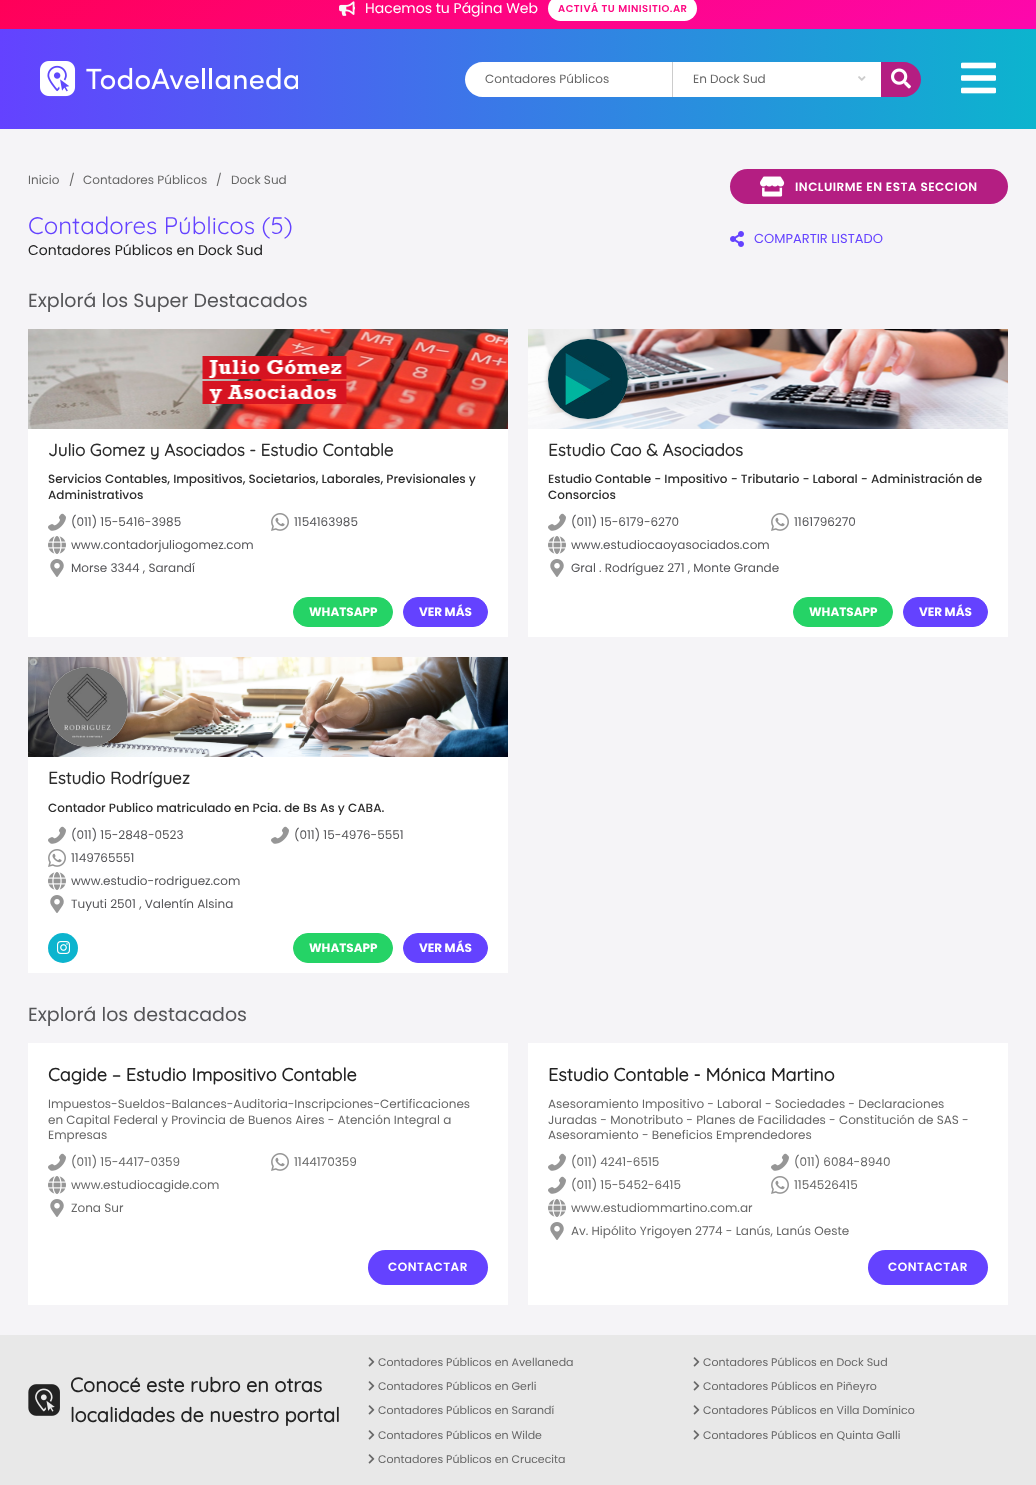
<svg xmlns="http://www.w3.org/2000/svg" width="1036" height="1485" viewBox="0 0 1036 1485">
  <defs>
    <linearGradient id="g1" gradientUnits="userSpaceOnUse" x1="338" y1="-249" x2="698" y2="266"><stop offset="0" stop-color="rgb(255,0,87)"/><stop offset="1" stop-color="rgb(253,8,173)"/></linearGradient>
    <linearGradient id="g2" gradientUnits="userSpaceOnUse" x1="0" y1="79" x2="1036" y2="79"><stop offset="0" stop-color="rgb(100,66,255)"/><stop offset="1" stop-color="rgb(12,180,206)"/></linearGradient>
  </defs>
  <rect width="100%" height="100%" fill="rgb(245,244,247)"/>
  <rect x="0" y="0" width="1036" height="29" fill="url(#g1)"/>
  <image x="339" y="1" width="16" height="15" href="pic1.png"/>
  <text x="365" y="13" font-family="Poppins" font-size="14" fill="rgb(255,255,255)">Hacemos tu Página Web</text>
  <rect x="548" y="-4" width="149" height="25" rx="12.5" fill="rgb(255,255,255)"/>
  <text x="558" y="12" font-family="Poppins" font-size="10" font-weight="600" letter-spacing="0.5" fill="rgb(253,8,130)">ACTIVÁ TU MINISITIO.AR</text>
  <rect x="0" y="29" width="1036" height="100" fill="url(#g2)"/>
  <image x="40" y="61" width="258" height="36" href="pic2.png"/>
  <path d="M482.5 62H673V97H482.5C473 97 465 89 465 79.5C465 70 473 62 482.5 62Z" fill="rgb(255,255,255)"/>
  <rect x="672" y="62" width="1" height="35" fill="rgb(204,204,204)"/>
  <text x="485" y="83" font-family="Poppins" font-size="12" fill="rgb(102,102,102)">Contadores Públicos</text>
  <rect x="673" y="62" width="208" height="35" fill="rgb(255,255,255)"/>
  <text x="693" y="83" font-family="Poppins" font-size="12" fill="rgb(102,102,102)">En Dock Sud</text>
  <image x="858" y="76" width="8" height="5" href="pic3.png"/>
  <path d="M881 62H903.5C913 62 921 70 921 79.5C921 89 913 97 903.5 97H881Z" fill="rgb(180,30,130)"/>
  <image x="891" y="68" width="20" height="21" href="pic4.png"/>
  <image x="961" y="62" width="35" height="32" href="pic5.png"/>
  <g font-family="Poppins" font-size="12" fill="rgb(102,102,102)">
    <text x="28" y="184">Inicio</text>
    <text x="69" y="184">/</text>
    <text x="83" y="184">Contadores Públicos</text>
    <text x="216" y="184">/</text>
    <text x="231" y="184">Dock Sud</text>
  </g>
  <text x="28" y="234" font-family="Quicksand" font-size="24" fill="rgb(100,66,255)">Contadores Públicos (5)</text>
  <text x="28" y="255" font-family="Poppins" font-size="14" fill="rgb(34,34,34)">Contadores Públicos en Dock Sud</text>
  <rect x="730" y="169" width="278" height="35" rx="17.5" fill="rgb(180,30,130)"/>
  <image x="760" y="176" width="25" height="21" href="pic6.png"/>
  <text x="795" y="191" font-family="Poppins" font-size="12" font-weight="600" letter-spacing="0.5" fill="rgb(255,255,255)">INCLUIRME EN ESTA SECCION</text>
  <image x="730" y="231" width="14" height="16" href="pic7.png"/>
  <text x="754" y="243" font-family="Poppins" font-size="13" fill="rgb(100,66,255)">COMPARTIR LISTADO</text>
  <text x="28" y="307" font-family="Poppins" font-size="19" fill="rgb(85,85,88)">Explorá los Super Destacados</text>
  <rect x="28" y="429" width="480" height="208" fill="rgb(255,255,255)"/>
  <image x="28" y="329" width="480" height="100" href="pic8.png"/>
  <text x="48" y="456" font-family="Quicksand" font-size="17" font-weight="bold" fill="rgb(45,45,45)">Julio Gomez y Asociados - Estudio Contable</text>
  <g font-family="Poppins" font-size="12" font-weight="500" fill="rgb(45,45,45)">
    <text>
      <tspan x="48" y="483">Servicios Contables, Impositivos, Societarios, Laborales, Previsionales y</tspan>
      <tspan x="48" y="499">Administrativos</tspan>
    </text>
  </g>
  <image x="48" y="513" width="18" height="18" href="pic9.png"/>
  <text x="71" y="526" font-family="Poppins" font-size="12" fill="rgb(85,85,88)">(011) 15-5416-3985</text>
  <image x="271" y="513" width="18" height="18" href="pic10.png"/>
  <text x="294" y="526" font-family="Poppins" font-size="12" fill="rgb(85,85,88)">1154163985</text>
  <image x="48" y="536" width="18" height="18" href="pic11.png"/>
  <text x="71" y="549" font-family="Poppins" font-size="12" fill="rgb(85,85,88)">www.contadorjuliogomez.com</text>
  <image x="50" y="559" width="14" height="18" href="pic12.png"/>
  <text x="71" y="572" font-family="Poppins" font-size="12" fill="rgb(85,85,88)">Morse 3344 , Sarandí</text>
  <rect x="293.5" y="597.5" width="99" height="29" rx="14.5" fill="rgb(37,211,102)" stroke="rgb(37,211,102)"/>
  <text x="309" y="616" font-family="Poppins" font-size="12" font-weight="bold" fill="rgb(255,255,255)">WHATSAPP</text>
  <rect x="403.5" y="597.5" width="84" height="29" rx="14.5" fill="rgb(100,66,255)" stroke="rgb(100,66,255)"/>
  <text x="419" y="616" font-family="Poppins" font-size="12" font-weight="bold" fill="rgb(255,255,255)">VER MÁS</text>
  <rect x="528" y="429" width="480" height="208" fill="rgb(255,255,255)"/>
  <image x="528" y="329" width="480" height="100" href="pic13.png"/>
  <rect x="548" y="339" width="80" height="80" rx="40" fill="rgba(0,0,0,0.25)" filter="blur(2px)"/>
  <circle cx="588" cy="379" r="40" fill="rgb(255,255,255)"/>
  <image x="548" y="339" width="80" height="80" href="pic14.png"/>
  <text x="548" y="456" font-family="Quicksand" font-size="17" font-weight="bold" fill="rgb(45,45,45)">Estudio Cao &amp; Asociados</text>
  <g font-family="Poppins" font-size="12" font-weight="500" fill="rgb(45,45,45)">
    <text>
      <tspan x="548" y="483">Estudio Contable - Impositivo - Tributario - Laboral - Administración de</tspan>
      <tspan x="548" y="499">Consorcios</tspan>
    </text>
  </g>
  <image x="548" y="513" width="18" height="18" href="pic9.png"/>
  <text x="571" y="526" font-family="Poppins" font-size="12" fill="rgb(85,85,88)">(011) 15-6179-6270</text>
  <image x="771" y="513" width="18" height="18" href="pic10.png"/>
  <text x="794" y="526" font-family="Poppins" font-size="12" fill="rgb(85,85,88)">1161796270</text>
  <image x="548" y="536" width="18" height="18" href="pic11.png"/>
  <text x="571" y="549" font-family="Poppins" font-size="12" fill="rgb(85,85,88)">www.estudiocaoyasociados.com</text>
  <image x="550" y="559" width="14" height="18" href="pic12.png"/>
  <text x="571" y="572" font-family="Poppins" font-size="12" fill="rgb(85,85,88)">Gral . Rodríguez 271 , Monte Grande</text>
  <rect x="793.5" y="597.5" width="99" height="29" rx="14.5" fill="rgb(37,211,102)" stroke="rgb(37,211,102)"/>
  <text x="809" y="616" font-family="Poppins" font-size="12" font-weight="bold" fill="rgb(255,255,255)">WHATSAPP</text>
  <rect x="903.5" y="597.5" width="84" height="29" rx="14.5" fill="rgb(100,66,255)" stroke="rgb(100,66,255)"/>
  <text x="919" y="616" font-family="Poppins" font-size="12" font-weight="bold" fill="rgb(255,255,255)">VER MÁS</text>
  <rect x="28" y="757" width="480" height="216" fill="rgb(255,255,255)"/>
  <image x="28" y="657" width="480" height="100" href="pic15.png"/>
  <rect x="48" y="667" width="80" height="80" rx="40" fill="rgba(0,0,0,0.25)" filter="blur(2px)"/>
  <circle cx="88" cy="707" r="40" fill="rgb(255,255,255)"/>
  <image x="48" y="667" width="80" height="80" href="pic16.png"/>
  <text x="48" y="784" font-family="Quicksand" font-size="17" font-weight="bold" fill="rgb(45,45,45)">Estudio Rodríguez</text>
  <text x="48" y="812" font-family="Poppins" font-size="12" font-weight="500" fill="rgb(45,45,45)">Contador Publico matriculado en Pcia. de Bs As y CABA.</text>
  <image x="48" y="826" width="18" height="18" href="pic9.png"/>
  <text x="71" y="839" font-family="Poppins" font-size="12" fill="rgb(85,85,88)">(011) 15-2848-0523</text>
  <image x="271" y="826" width="18" height="18" href="pic9.png"/>
  <text x="294" y="839" font-family="Poppins" font-size="12" fill="rgb(85,85,88)">(011) 15-4976-5551</text>
  <image x="48" y="849" width="18" height="18" href="pic10.png"/>
  <text x="71" y="862" font-family="Poppins" font-size="12" fill="rgb(85,85,88)">1149765551</text>
  <image x="48" y="872" width="18" height="18" href="pic11.png"/>
  <text x="71" y="885" font-family="Poppins" font-size="12" fill="rgb(85,85,88)">www.estudio-rodriguez.com</text>
  <image x="50" y="895" width="14" height="18" href="pic12.png"/>
  <text x="71" y="908" font-family="Poppins" font-size="12" fill="rgb(85,85,88)">Tuyuti 2501 , Valentín Alsina</text>
  <circle cx="63" cy="948" r="15" fill="rgb(12,180,206)"/>
  <image x="57" y="941" width="13" height="13" href="pic17.png"/>
  <rect x="293.5" y="933.5" width="99" height="29" rx="14.5" fill="rgb(37,211,102)" stroke="rgb(37,211,102)"/>
  <text x="309" y="952" font-family="Poppins" font-size="12" font-weight="bold" fill="rgb(255,255,255)">WHATSAPP</text>
  <rect x="403.5" y="933.5" width="84" height="29" rx="14.5" fill="rgb(100,66,255)" stroke="rgb(100,66,255)"/>
  <text x="419" y="952" font-family="Poppins" font-size="12" font-weight="bold" fill="rgb(255,255,255)">VER MÁS</text>
  <text x="28" y="1021" font-family="Poppins" font-size="19" fill="rgb(85,85,88)">Explorá los destacados</text>
  <rect x="28" y="1043" width="480" height="262" fill="rgb(255,255,255)"/>
  <text x="48" y="1081" font-family="Quicksand" font-size="18" font-weight="bold" fill="rgb(34,34,34)">Cagide – Estudio Impositivo Contable</text>
  <g font-family="Poppins" font-size="12" fill="rgb(102,102,102)">
    <text>
      <tspan x="48" y="1108">Impuestos-Sueldos-Balances-Auditoria-Inscripciones-Certificaciones</tspan>
      <tspan x="48" y="1124">en Capital Federal y Provincia de Buenos Aires - Atención Integral a</tspan>
      <tspan x="48" y="1139">Empresas</tspan>
    </text>
  </g>
  <image x="48" y="1153" width="18" height="18" href="pic9.png"/>
  <text x="71" y="1166" font-family="Poppins" font-size="12" fill="rgb(102,102,102)">(011) 15-4417-0359</text>
  <image x="271" y="1153" width="18" height="18" href="pic10.png"/>
  <text x="294" y="1166" font-family="Poppins" font-size="12" fill="rgb(102,102,102)">1144170359</text>
  <image x="48" y="1176" width="18" height="18" href="pic11.png"/>
  <text x="71" y="1189" font-family="Poppins" font-size="12" fill="rgb(102,102,102)">www.estudiocagide.com</text>
  <image x="50" y="1199" width="14" height="18" href="pic12.png"/>
  <text x="71" y="1212" font-family="Poppins" font-size="12" fill="rgb(102,102,102)">Zona Sur</text>
  <rect x="368" y="1250" width="120" height="35" rx="17.5" fill="rgb(100,66,255)"/>
  <text x="388" y="1271" font-family="Poppins" font-size="12" font-weight="600" letter-spacing="0.5" fill="rgb(255,255,255)">CONTACTAR</text>
  <rect x="528" y="1043" width="480" height="262" fill="rgb(255,255,255)"/>
  <text x="548" y="1081" font-family="Quicksand" font-size="18" font-weight="bold" fill="rgb(34,34,34)">Estudio Contable - Mónica Martino</text>
  <g font-family="Poppins" font-size="12" fill="rgb(102,102,102)">
    <text>
      <tspan x="548" y="1108">Asesoramiento Impositivo - Laboral - Sociedades - Declaraciones</tspan>
      <tspan x="548" y="1124">Juradas - Monotributo - Planes de Facilidades - Constitución de SAS -</tspan>
      <tspan x="548" y="1139">Asesoramiento - Beneficios Emprendedores</tspan>
    </text>
  </g>
  <image x="548" y="1153" width="18" height="18" href="pic9.png"/>
  <text x="571" y="1166" font-family="Poppins" font-size="12" fill="rgb(102,102,102)">(011) 4241-6515</text>
  <image x="771" y="1153" width="18" height="18" href="pic9.png"/>
  <text x="794" y="1166" font-family="Poppins" font-size="12" fill="rgb(102,102,102)">(011) 6084-8940</text>
  <image x="548" y="1176" width="18" height="18" href="pic9.png"/>
  <text x="571" y="1189" font-family="Poppins" font-size="12" fill="rgb(102,102,102)">(011) 15-5452-6415</text>
  <image x="771" y="1176" width="18" height="18" href="pic10.png"/>
  <text x="794" y="1189" font-family="Poppins" font-size="12" fill="rgb(102,102,102)">1154526415</text>
  <image x="548" y="1199" width="18" height="18" href="pic11.png"/>
  <text x="571" y="1212" font-family="Poppins" font-size="12" fill="rgb(102,102,102)">www.estudiommartino.com.ar</text>
  <image x="550" y="1222" width="14" height="18" href="pic12.png"/>
  <text x="571" y="1235" font-family="Poppins" font-size="12" fill="rgb(102,102,102)">Av. Hipólito Yrigoyen 2774 - Lanús, Lanús Oeste</text>
  <rect x="868" y="1250" width="120" height="35" rx="17.5" fill="rgb(100,66,255)"/>
  <text x="888" y="1271" font-family="Poppins" font-size="12" font-weight="600" letter-spacing="0.5" fill="rgb(255,255,255)">CONTACTAR</text>
  <rect x="0" y="1335" width="1036" height="150" fill="rgb(232,232,232)"/>
  <image x="28" y="1384" width="32" height="32" href="pic18.png"/>
  <g font-family="Quicksand" font-size="20" font-weight="bold" fill="rgb(34,34,34)">
    <text>
      <tspan x="70" y="1392">Conocé este rubro en otras</tspan>
      <tspan x="70" y="1422">localidades de nuestro portal</tspan>
    </text>
  </g>
  <image x="368" y="1357" width="7" height="10" href="pic19.png"/>
  <text x="378" y="1366" font-family="Poppins" font-size="11" fill="rgb(102,102,102)">Contadores Públicos en Avellaneda</text>
  <image x="693" y="1357" width="7" height="10" href="pic19.png"/>
  <text x="703" y="1366" font-family="Poppins" font-size="11" fill="rgb(102,102,102)">Contadores Públicos en Dock Sud</text>
  <image x="368" y="1381" width="7" height="10" href="pic19.png"/>
  <text x="378" y="1390" font-family="Poppins" font-size="11" fill="rgb(102,102,102)">Contadores Públicos en Gerli</text>
  <image x="693" y="1381" width="7" height="10" href="pic19.png"/>
  <text x="703" y="1390" font-family="Poppins" font-size="11" fill="rgb(102,102,102)">Contadores Públicos en Piñeyro</text>
  <image x="368" y="1405" width="7" height="10" href="pic19.png"/>
  <text x="378" y="1414" font-family="Poppins" font-size="11" fill="rgb(102,102,102)">Contadores Públicos en Sarandí</text>
  <image x="693" y="1405" width="7" height="10" href="pic19.png"/>
  <text x="703" y="1414" font-family="Poppins" font-size="11" fill="rgb(102,102,102)">Contadores Públicos en Villa Domínico</text>
  <image x="368" y="1430" width="7" height="10" href="pic19.png"/>
  <text x="378" y="1439" font-family="Poppins" font-size="11" fill="rgb(102,102,102)">Contadores Públicos en Wilde</text>
  <image x="693" y="1430" width="7" height="10" href="pic19.png"/>
  <text x="703" y="1439" font-family="Poppins" font-size="11" fill="rgb(102,102,102)">Contadores Públicos en Quinta Galli</text>
  <image x="368" y="1454" width="7" height="10" href="pic19.png"/>
  <text x="378" y="1463" font-family="Poppins" font-size="11" fill="rgb(102,102,102)">Contadores Públicos en Crucecita</text>
</svg>
